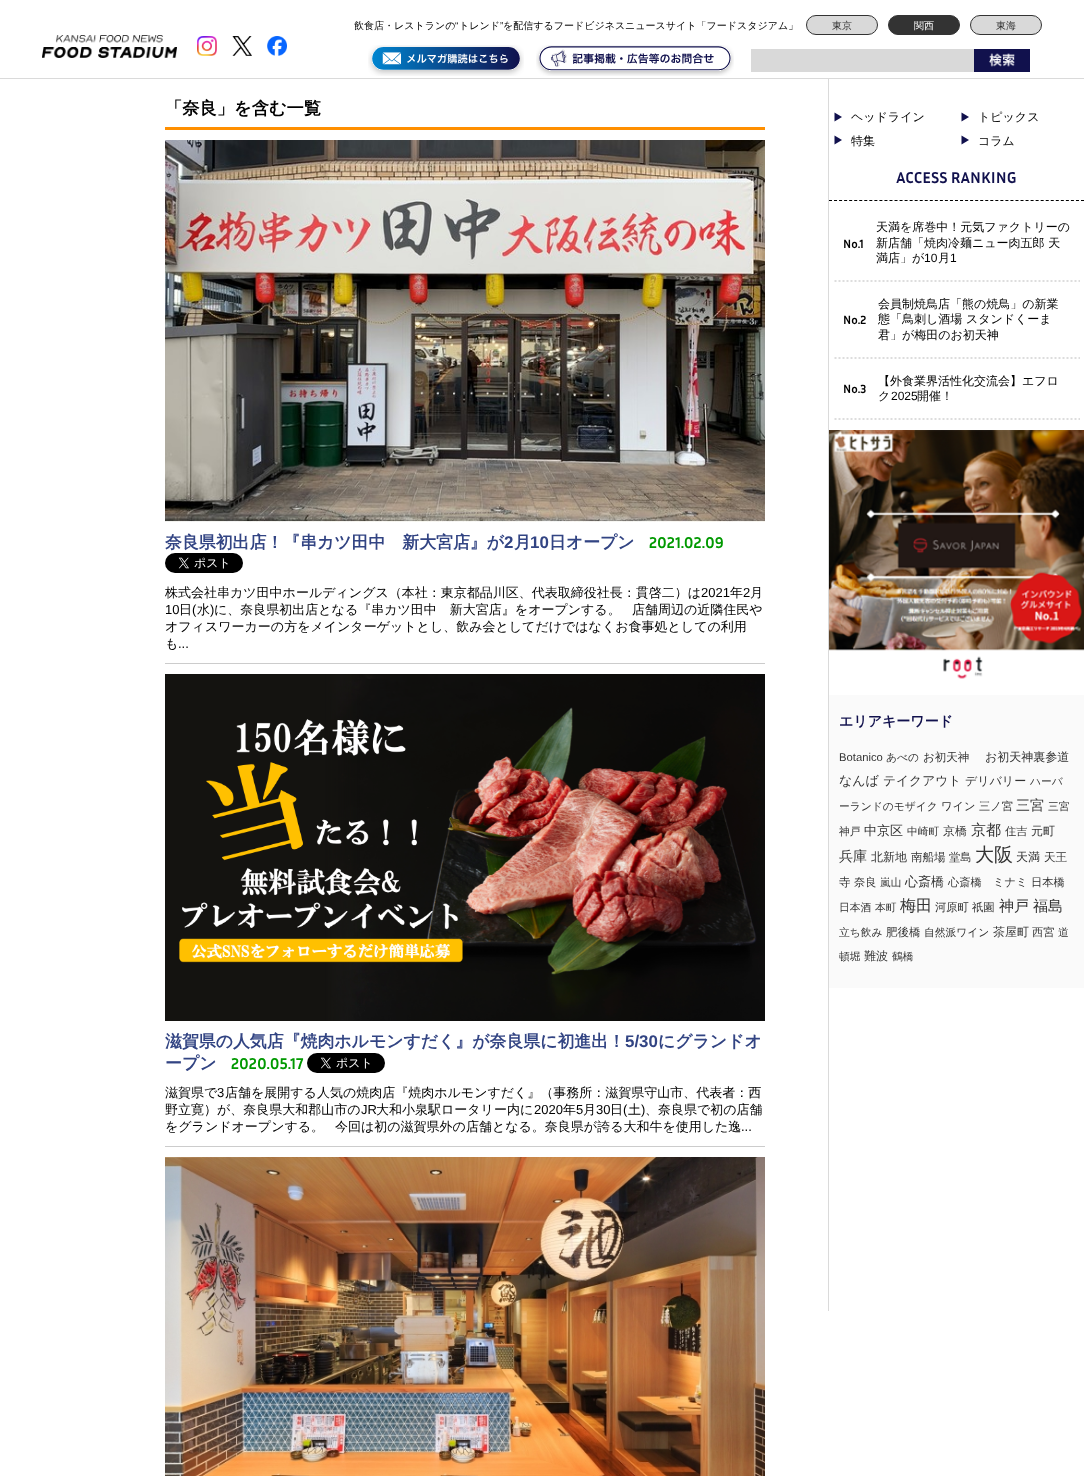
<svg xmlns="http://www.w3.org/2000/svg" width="1084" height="1476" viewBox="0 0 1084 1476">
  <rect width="100%" height="100%" fill="rgb(255,255,255)"/>
  <rect x="0" y="78" width="1084" height="1" fill="rgb(218,218,218)"/>
  <text x="354" y="29" font-family="WenQuanYi Zen Hei" font-size="10" font-weight="500" fill="rgb(0,0,0)">飲食店・レストランの</text>
  <text x="455" y="29" font-family="Liberation Sans" font-size="10" fill="rgb(0,0,0)">“</text>
  <text x="459" y="29" font-family="WenQuanYi Zen Hei" font-size="10" font-weight="500" fill="rgb(0,0,0)">トレンド</text>
  <text x="500" y="29" font-family="Liberation Sans" font-size="10" fill="rgb(0,0,0)">”</text>
  <text x="503" y="29" font-family="WenQuanYi Zen Hei" font-size="10" font-weight="500" fill="rgb(0,0,0)">を配信するフードビジネスニュースサイト「フードスタジアム」</text>
  <rect x="806.5" y="15.5" width="71" height="19" rx="9.5" fill="rgb(217,217,217)" stroke="rgb(51,51,51)"/>
  <text x="832" y="29" font-family="WenQuanYi Zen Hei" font-size="10" font-weight="500" fill="rgb(51,51,51)">東京</text>
  <rect x="888.5" y="15.5" width="71" height="19" rx="9.5" fill="rgb(51,51,51)" stroke="rgb(51,51,51)"/>
  <text x="914" y="29" font-family="WenQuanYi Zen Hei" font-size="10" font-weight="500" fill="rgb(255,255,255)">関西</text>
  <rect x="970.5" y="15.5" width="71" height="19" rx="9.5" fill="rgb(217,217,217)" stroke="rgb(51,51,51)"/>
  <text x="996" y="29" font-family="WenQuanYi Zen Hei" font-size="10" font-weight="500" fill="rgb(51,51,51)">東海</text>
  <image x="368" y="45" width="156" height="31" href="pic1.png"/>
  <image x="536" y="45" width="198" height="31" href="pic2.png"/>
  <rect x="974" y="49" width="56" height="23" fill="rgb(17,17,77)"/>
  <rect x="751" y="49" width="223" height="23" fill="rgb(217,217,217)"/>
  <image x="989" y="53" width="26" height="14" href="pic3.png"/>
  <image x="42" y="35" width="135" height="23" href="pic4.png"/>
  <image x="197" y="36" width="20" height="20" href="pic5.png"/>
  <image x="232" y="36" width="20" height="20" href="pic6.png"/>
  <image x="267" y="36" width="20" height="20" href="pic7.png"/>
  <rect x="165" y="127" width="600" height="3" fill="rgb(255,143,0)"/>
  <text x="165" y="114" font-family="WenQuanYi Zen Hei" font-size="17.25" font-weight="bold" fill="rgb(0,0,0)">「奈良」を含む一覧</text>
  <rect x="165" y="663" width="600" height="1" fill="rgb(204,204,204)"/>
  <image x="165" y="140" width="600" height="382" href="pic8.png"/>
  <text x="165" y="548" font-family="WenQuanYi Zen Hei" font-size="16.9" font-weight="bold" fill="rgb(50,68,131)">奈良県初出店！『串カツ田中　新大宮店』が</text>
  <text x="504" y="548" font-family="Liberation Sans" font-size="16.9" font-weight="bold" fill="rgb(50,68,131)">2</text>
  <text x="514" y="548" font-family="WenQuanYi Zen Hei" font-size="16.9" font-weight="bold" fill="rgb(50,68,131)">月</text>
  <text x="530" y="548" font-family="Liberation Sans" font-size="16.9" font-weight="bold" fill="rgb(50,68,131)">10</text>
  <text x="549" y="548" font-family="WenQuanYi Zen Hei" font-size="16.9" font-weight="bold" fill="rgb(50,68,131)">日オープン</text>
  <text x="649" y="548" font-family="Inria Sans" font-size="16" font-weight="bold" fill="rgb(0,153,0)">2021.02.09</text>
  <image x="165" y="553" width="78" height="20" href="pic9.png"/>
  <text x="165" y="597" font-family="WenQuanYi Zen Hei" font-size="13" font-weight="500" fill="rgb(0,0,0)">株式会社串カツ田中ホールディングス（本社：東京都品川区、代表取締役社長：貫啓二）は</text>
  <text x="701" y="597" font-family="Liberation Sans" font-size="13" fill="rgb(0,0,0)">2021</text>
  <text x="730" y="597" font-family="WenQuanYi Zen Hei" font-size="13" font-weight="500" fill="rgb(0,0,0)">年</text>
  <text x="743" y="597" font-family="Liberation Sans" font-size="13" fill="rgb(0,0,0)">2</text>
  <text x="750" y="597" font-family="WenQuanYi Zen Hei" font-size="13" font-weight="500" fill="rgb(0,0,0)">月</text>
  <text x="165" y="614" font-family="Liberation Sans" font-size="13" fill="rgb(0,0,0)">10</text>
  <text x="179" y="614" font-family="WenQuanYi Zen Hei" font-size="13" font-weight="500" fill="rgb(0,0,0)">日</text>
  <text x="192" y="614" font-family="Liberation Sans" font-size="13" fill="rgb(0,0,0)">(</text>
  <text x="197" y="614" font-family="WenQuanYi Zen Hei" font-size="13" font-weight="500" fill="rgb(0,0,0)">水</text>
  <text x="210" y="614" font-family="Liberation Sans" font-size="13" fill="rgb(0,0,0)">)</text>
  <g font-family="WenQuanYi Zen Hei" font-size="13" font-weight="500" fill="rgb(0,0,0)">
    <text x="214" y="614">に、奈良県初出店となる『串カツ田中　新大宮店』をオープンする。</text>
    <text x="632" y="614">店舗周辺の近隣住民や</text>
    <text>
      <tspan x="165" y="631">オフィスワーカーの方をメインターゲットとし、飲み会としてだけではなくお食事処としての利用</tspan>
      <tspan x="165" y="648">も</tspan>
    </text>
  </g>
  <text x="178" y="648" font-family="Liberation Sans" font-size="13" fill="rgb(0,0,0)">...</text>
  <rect x="165" y="1146" width="600" height="1" fill="rgb(204,204,204)"/>
  <image x="165" y="674" width="600" height="347" href="pic10.png"/>
  <text x="165" y="1047" font-family="WenQuanYi Zen Hei" font-size="16.9" font-weight="bold" fill="rgb(50,68,131)">滋賀県の人気店『焼肉ホルモンすだく』が奈良県に初進出！</text>
  <text x="625" y="1047" font-family="Liberation Sans" font-size="16.9" font-weight="bold" fill="rgb(50,68,131)">5/30</text>
  <g font-family="WenQuanYi Zen Hei" font-size="16.9" font-weight="bold" fill="rgb(50,68,131)">
    <text x="658" y="1047">にグランドオ</text>
    <text x="165" y="1069">ープン</text>
  </g>
  <text x="231" y="1069" font-family="Inria Sans" font-size="16" font-weight="bold" fill="rgb(0,153,0)">2020.05.17</text>
  <image x="307" y="1053" width="78" height="20" href="pic9.png"/>
  <text x="165" y="1097" font-family="WenQuanYi Zen Hei" font-size="13" font-weight="500" fill="rgb(0,0,0)">滋賀県で</text>
  <text x="217" y="1097" font-family="Liberation Sans" font-size="13" fill="rgb(0,0,0)">3</text>
  <g font-family="WenQuanYi Zen Hei" font-size="13" font-weight="500" fill="rgb(0,0,0)">
    <text x="225" y="1097">店舗を展開する人気の焼肉店『焼肉ホルモンすだく』（事務所：滋賀県守山市、代表者：西</text>
    <text x="165" y="1114">野立寛）が、奈良県大和郡山市の</text>
  </g>
  <text x="361" y="1114" font-family="Liberation Sans" font-size="13" fill="rgb(0,0,0)">JR</text>
  <text x="376" y="1114" font-family="WenQuanYi Zen Hei" font-size="13" font-weight="500" fill="rgb(0,0,0)">大和小泉駅ロータリー内に</text>
  <text x="534" y="1114" font-family="Liberation Sans" font-size="13" fill="rgb(0,0,0)">2020</text>
  <text x="563" y="1114" font-family="WenQuanYi Zen Hei" font-size="13" font-weight="500" fill="rgb(0,0,0)">年</text>
  <text x="576" y="1114" font-family="Liberation Sans" font-size="13" fill="rgb(0,0,0)">5</text>
  <text x="583" y="1114" font-family="WenQuanYi Zen Hei" font-size="13" font-weight="500" fill="rgb(0,0,0)">月</text>
  <text x="596" y="1114" font-family="Liberation Sans" font-size="13" fill="rgb(0,0,0)">30</text>
  <text x="610" y="1114" font-family="WenQuanYi Zen Hei" font-size="13" font-weight="500" fill="rgb(0,0,0)">日</text>
  <text x="623" y="1114" font-family="Liberation Sans" font-size="13" fill="rgb(0,0,0)">(</text>
  <text x="628" y="1114" font-family="WenQuanYi Zen Hei" font-size="13" font-weight="500" fill="rgb(0,0,0)">土</text>
  <text x="641" y="1114" font-family="Liberation Sans" font-size="13" fill="rgb(0,0,0)">)</text>
  <g font-family="WenQuanYi Zen Hei" font-size="13" font-weight="500" fill="rgb(0,0,0)">
    <text x="645" y="1114">、奈良県で初の店舗</text>
    <text x="165" y="1131">をグランドオープンする。</text>
    <text x="335" y="1131">今回は初の滋賀県外の店舗となる。奈良県が誇る大和牛を使用した逸</text>
  </g>
  <text x="741" y="1131" font-family="Liberation Sans" font-size="13" fill="rgb(0,0,0)">...</text>
  <image x="165" y="1157" width="600" height="319" href="pic11.png"/>
  <rect x="828" y="79" width="1" height="1232" fill="rgb(218,218,218)"/>
  <path d="M842 117L834.5 121.5V112.5Z" fill="rgb(17,17,77)"/>
  <text x="851" y="121" font-family="WenQuanYi Zen Hei" font-size="12" font-weight="500" fill="rgb(0,0,0)">ヘッドライン</text>
  <path d="M969 117L961.5 121.5V112.5Z" fill="rgb(17,17,77)"/>
  <text x="978" y="121" font-family="WenQuanYi Zen Hei" font-size="12" font-weight="500" fill="rgb(0,0,0)">トピックス</text>
  <path d="M842 140L834.5 144.5V135.5Z" fill="rgb(17,17,77)"/>
  <text x="851" y="145" font-family="WenQuanYi Zen Hei" font-size="12" font-weight="500" fill="rgb(0,0,0)">特集</text>
  <path d="M969 140L961.5 144.5V135.5Z" fill="rgb(17,17,77)"/>
  <text x="978" y="145" font-family="WenQuanYi Zen Hei" font-size="12" font-weight="500" fill="rgb(0,0,0)">コラム</text>
  <path d="M829 200.5H1084" fill="none" stroke="rgb(0,0,0)" stroke-dasharray="3 2.04"/>
  <text x="896" y="183" font-family="Inria Sans" font-size="16" font-weight="bold" fill="rgb(17,17,77)">ACCESS RANKING</text>
  <image x="834" y="280" width="246" height="2" href="pic12.png"/>
  <text x="843" y="248" font-family="Inria Sans" font-size="12" font-weight="bold" fill="rgb(0,0,0)">No.1</text>
  <g font-family="WenQuanYi Zen Hei" font-size="12" font-weight="500" fill="rgb(0,0,0)">
    <text>
      <tspan x="876" y="231">天満を席巻中！元気ファクトリーの</tspan>
      <tspan x="876" y="247">新店舗「焼肉冷麺ニュー肉五郎 天</tspan>
      <tspan x="876" y="262">満店」が</tspan>
    </text>
  </g>
  <text x="924" y="262" font-family="Liberation Sans" font-size="12" fill="rgb(0,0,0)">10</text>
  <text x="938" y="262" font-family="WenQuanYi Zen Hei" font-size="12" font-weight="500" fill="rgb(0,0,0)">月</text>
  <text x="950" y="262" font-family="Liberation Sans" font-size="12" fill="rgb(0,0,0)">1</text>
  <image x="834" y="357" width="246" height="2" href="pic12.png"/>
  <text x="843" y="324" font-family="Inria Sans" font-size="12" font-weight="bold" fill="rgb(0,0,0)">No.2</text>
  <g font-family="WenQuanYi Zen Hei" font-size="12" font-weight="500" fill="rgb(0,0,0)">
    <text>
      <tspan x="878" y="308">会員制焼鳥店「熊の焼鳥」の新業</tspan>
      <tspan x="878" y="323">態「鳥刺し酒場 スタンドくーま</tspan>
      <tspan x="878" y="339">君」が梅田のお初天神</tspan>
    </text>
  </g>
  <image x="834" y="418" width="246" height="2" href="pic12.png"/>
  <text x="843" y="393" font-family="Inria Sans" font-size="12" font-weight="bold" fill="rgb(0,0,0)">No.3</text>
  <g font-family="WenQuanYi Zen Hei" font-size="12" font-weight="500" fill="rgb(0,0,0)">
    <text>
      <tspan x="878" y="385">【外食業界活性化交流会】エフロ</tspan>
      <tspan x="878" y="400">ク</tspan>
    </text>
  </g>
  <text x="891" y="400" font-family="Liberation Sans" font-size="12" fill="rgb(0,0,0)">2025</text>
  <text x="917" y="400" font-family="WenQuanYi Zen Hei" font-size="12" font-weight="500" fill="rgb(0,0,0)">開催！</text>
  <image x="829" y="430" width="255" height="249" href="pic13.png"/>
  <rect x="829" y="695" width="255" height="293" fill="rgb(250,250,250)"/>
  <text x="839" y="726" font-family="WenQuanYi Zen Hei" font-size="14" font-weight="bold" fill="rgb(17,17,77)">エリアキーワード</text>
  <text x="839" y="761" font-family="Liberation Sans" font-size="11.25" fill="rgb(51,51,51)">Botanico</text>
  <text x="886" y="761" font-family="WenQuanYi Zen Hei" font-size="10.75" font-weight="500" fill="rgb(51,51,51)">あべの</text>
  <text x="923" y="761" font-family="WenQuanYi Zen Hei" font-size="11.5" font-weight="500" fill="rgb(51,51,51)">お初天神</text>
  <text x="985" y="761" font-family="WenQuanYi Zen Hei" font-size="12" font-weight="500" fill="rgb(51,51,51)">お初天神裏参道</text>
  <text x="839" y="785" font-family="WenQuanYi Zen Hei" font-size="13" font-weight="500" fill="rgb(51,51,51)">なんば</text>
  <text x="883" y="785" font-family="WenQuanYi Zen Hei" font-size="12.75" font-weight="500" fill="rgb(51,51,51)">テイクアウト</text>
  <text x="965" y="785" font-family="WenQuanYi Zen Hei" font-size="12" font-weight="500" fill="rgb(51,51,51)">デリバリー</text>
  <g font-family="WenQuanYi Zen Hei" font-size="10.75" font-weight="500" fill="rgb(51,51,51)">
    <text x="1030" y="785">ハーバ</text>
    <text x="839" y="810">ーランドのモザイク</text>
  </g>
  <text x="941" y="810" font-family="WenQuanYi Zen Hei" font-size="11.25" font-weight="500" fill="rgb(51,51,51)">ワイン 三ノ宮</text>
  <text x="1016" y="810" font-family="WenQuanYi Zen Hei" font-size="14" font-weight="500" fill="rgb(51,51,51)">三宮</text>
  <g font-family="WenQuanYi Zen Hei" font-size="10.75" font-weight="500" fill="rgb(51,51,51)">
    <text x="1048" y="810">三宮</text>
    <text x="839" y="835">神戸</text>
  </g>
  <text x="864" y="835" font-family="WenQuanYi Zen Hei" font-size="13" font-weight="500" fill="rgb(51,51,51)">中京区</text>
  <text x="907" y="835" font-family="WenQuanYi Zen Hei" font-size="10.75" font-weight="500" fill="rgb(51,51,51)">中崎町</text>
  <text x="943" y="835" font-family="WenQuanYi Zen Hei" font-size="12" font-weight="500" fill="rgb(51,51,51)">京橋</text>
  <text x="971" y="835" font-family="WenQuanYi Zen Hei" font-size="15" font-weight="500" fill="rgb(51,51,51)">京都</text>
  <text x="1005" y="835" font-family="WenQuanYi Zen Hei" font-size="11.25" font-weight="500" fill="rgb(51,51,51)">住吉</text>
  <text x="1031" y="835" font-family="WenQuanYi Zen Hei" font-size="12" font-weight="500" fill="rgb(51,51,51)">元町</text>
  <text x="839" y="861" font-family="WenQuanYi Zen Hei" font-size="14" font-weight="500" fill="rgb(51,51,51)">兵庫</text>
  <text x="871" y="861" font-family="WenQuanYi Zen Hei" font-size="12" font-weight="500" fill="rgb(51,51,51)">北新地</text>
  <text x="911" y="861" font-family="WenQuanYi Zen Hei" font-size="11.5" font-weight="500" fill="rgb(51,51,51)">南船場</text>
  <text x="949" y="861" font-family="WenQuanYi Zen Hei" font-size="11.25" font-weight="500" fill="rgb(51,51,51)">堂島</text>
  <text x="975" y="861" font-family="WenQuanYi Zen Hei" font-size="19" font-weight="500" fill="rgb(51,51,51)">大阪</text>
  <text x="1016" y="861" font-family="WenQuanYi Zen Hei" font-size="12" font-weight="500" fill="rgb(51,51,51)">天満</text>
  <g font-family="WenQuanYi Zen Hei" font-size="11.5" font-weight="500" fill="rgb(51,51,51)">
    <text x="1044" y="861">天王</text>
    <text x="839" y="886">寺</text>
  </g>
  <text x="854" y="886" font-family="WenQuanYi Zen Hei" font-size="11.25" font-weight="500" fill="rgb(51,51,51)">奈良</text>
  <text x="880" y="886" font-family="WenQuanYi Zen Hei" font-size="10.75" font-weight="500" fill="rgb(51,51,51)">嵐山</text>
  <text x="905" y="886" font-family="WenQuanYi Zen Hei" font-size="13" font-weight="500" fill="rgb(51,51,51)">心斎橋</text>
  <text x="948" y="886" font-family="WenQuanYi Zen Hei" font-size="11.25" font-weight="500" fill="rgb(51,51,51)">心斎橋　ミナミ 日本橋</text>
  <g font-family="WenQuanYi Zen Hei" font-size="10.75" font-weight="500" fill="rgb(51,51,51)">
    <text x="839" y="911">日本酒</text>
    <text x="875" y="911">本町</text>
  </g>
  <text x="900" y="911" font-family="WenQuanYi Zen Hei" font-size="16" font-weight="500" fill="rgb(51,51,51)">梅田</text>
  <text x="935" y="911" font-family="WenQuanYi Zen Hei" font-size="11.25" font-weight="500" fill="rgb(51,51,51)">河原町 祇園</text>
  <g font-family="WenQuanYi Zen Hei" font-size="15" font-weight="500" fill="rgb(51,51,51)">
    <text x="999" y="911">神戸</text>
    <text x="1033" y="911">福島</text>
  </g>
  <text x="839" y="936" font-family="WenQuanYi Zen Hei" font-size="10.75" font-weight="500" fill="rgb(51,51,51)">立ち飲み</text>
  <text x="886" y="936" font-family="WenQuanYi Zen Hei" font-size="11.5" font-weight="500" fill="rgb(51,51,51)">肥後橋</text>
  <text x="924" y="936" font-family="WenQuanYi Zen Hei" font-size="10.75" font-weight="500" fill="rgb(51,51,51)">自然派ワイン</text>
  <text x="993" y="936" font-family="WenQuanYi Zen Hei" font-size="12" font-weight="500" fill="rgb(51,51,51)">茶屋町</text>
  <text x="1032" y="936" font-family="WenQuanYi Zen Hei" font-size="11.25" font-weight="500" fill="rgb(51,51,51)">西宮</text>
  <g font-family="WenQuanYi Zen Hei" font-size="10.75" font-weight="500" fill="rgb(51,51,51)">
    <text x="1058" y="936">道</text>
    <text x="839" y="960">頓堀</text>
  </g>
  <text x="864" y="960" font-family="WenQuanYi Zen Hei" font-size="12" font-weight="500" fill="rgb(51,51,51)">難波</text>
  <text x="892" y="960" font-family="WenQuanYi Zen Hei" font-size="10.75" font-weight="500" fill="rgb(51,51,51)">鶴橋</text>
</svg>
